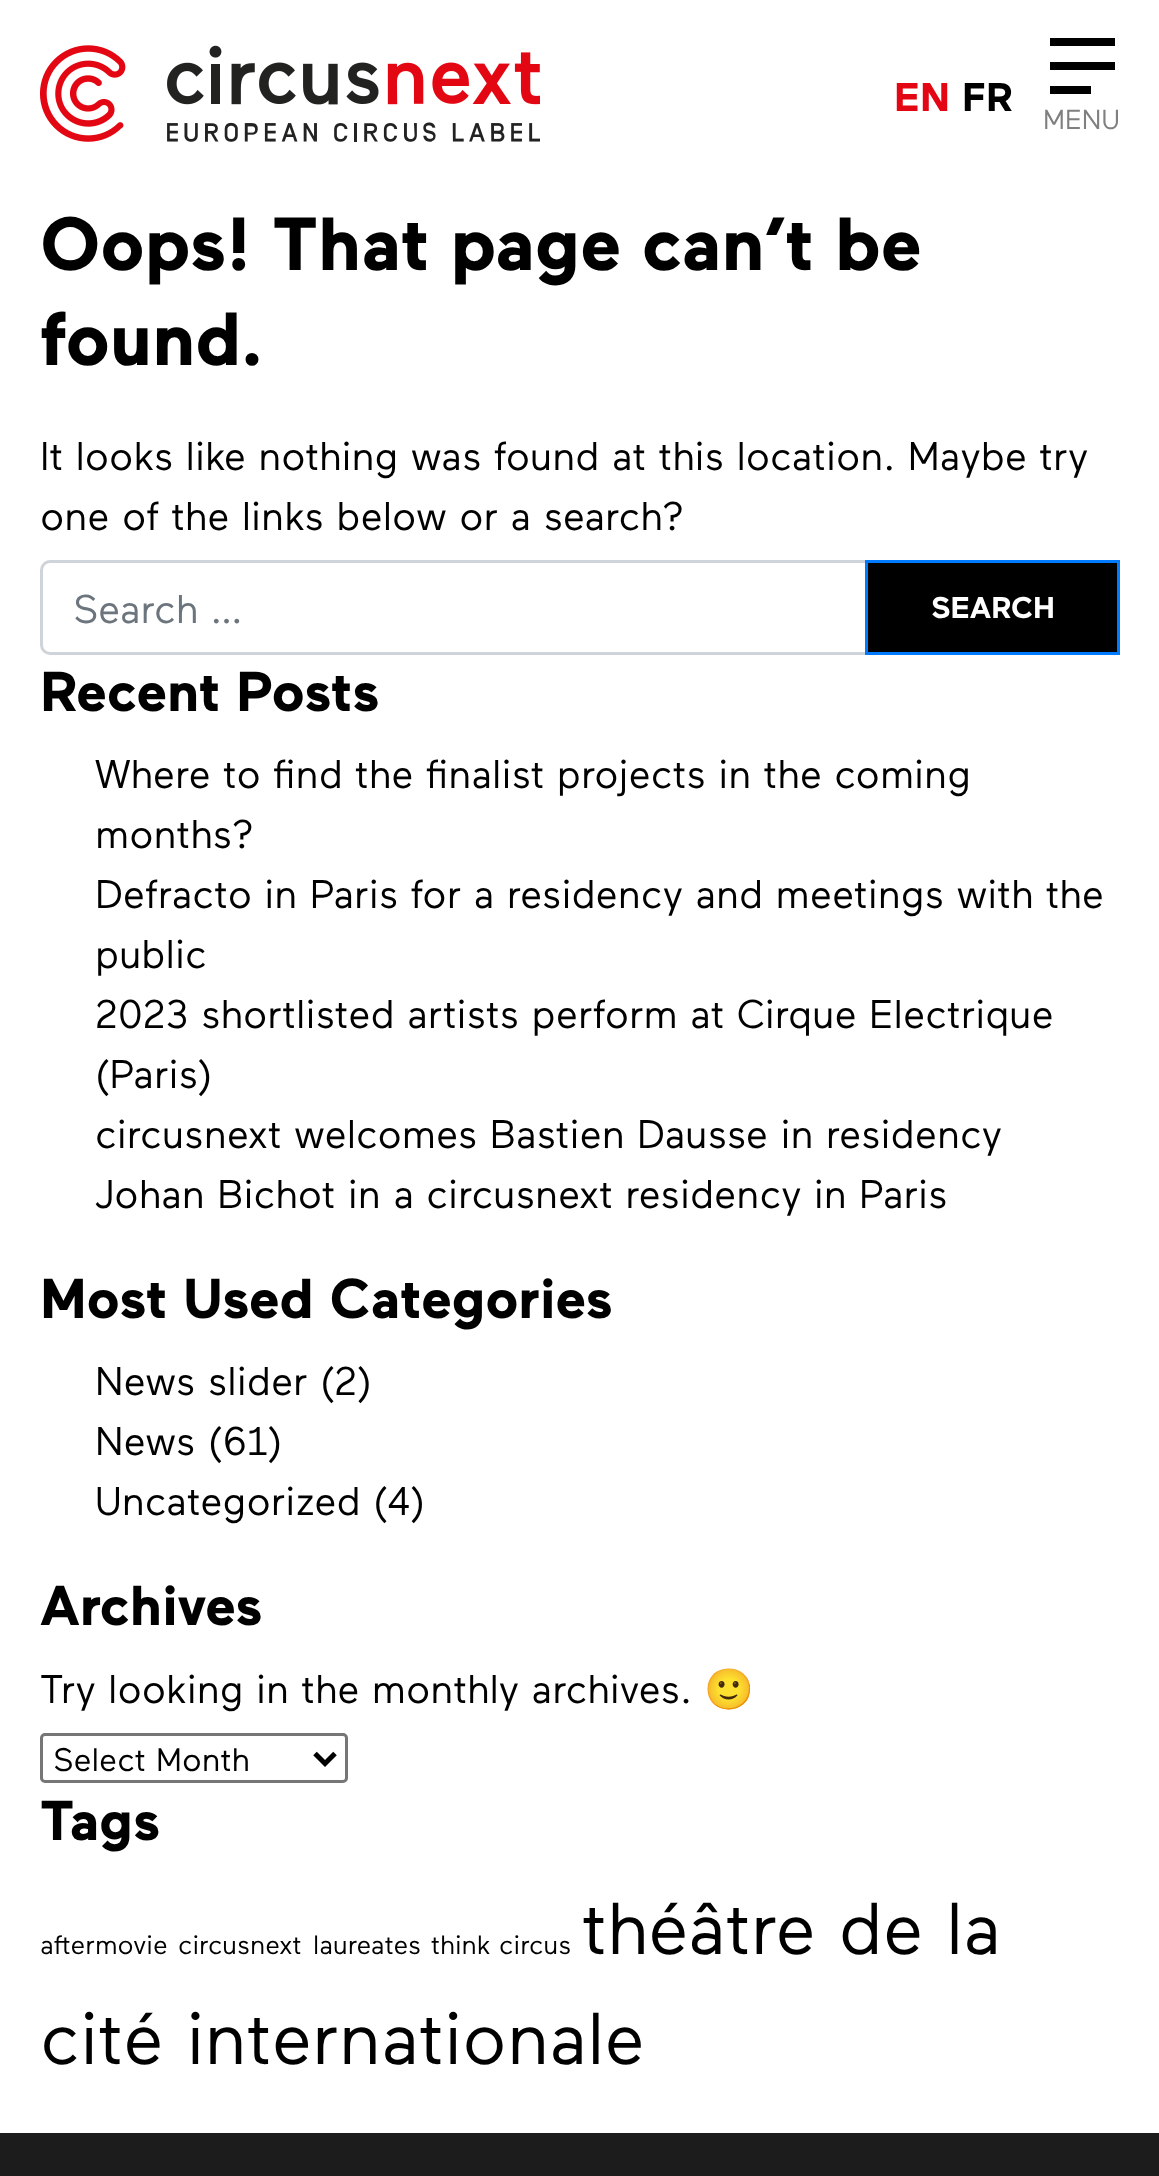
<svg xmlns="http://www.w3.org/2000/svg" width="1159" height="2176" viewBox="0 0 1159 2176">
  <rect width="100%" height="100%" fill="rgb(255,255,255)"/>
  <image x="40" y="45" width="500" height="97" href="pic1.png"/>
  <text x="894" y="111" font-family="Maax" font-size="40" font-weight="bold" fill="rgb(227,6,19)">EN</text>
  <text x="962" y="111" font-family="Maax" font-size="40" font-weight="bold" fill="rgb(0,0,0)">FR</text>
  <rect x="1050" y="38" width="65" height="8" fill="rgb(0,0,0)"/>
  <rect x="1050" y="62" width="65" height="8" fill="rgb(0,0,0)"/>
  <rect x="1050" y="86" width="41" height="8" fill="rgb(0,0,0)"/>
  <text x="1043" y="129" font-family="Maax" font-size="27.5" fill="rgb(128,128,128)">MENU</text>
  <g font-family="Maax" font-size="75" font-weight="bold" fill="rgb(0,0,0)">
    <text>
      <tspan x="40" y="270">Oops! That page can’t be</tspan>
      <tspan x="40" y="365">found.</tspan>
    </text>
  </g>
  <g font-family="Maax" font-size="40" fill="rgb(0,0,0)">
    <text>
      <tspan x="40" y="470">It looks like nothing was found at this location. Maybe try</tspan>
      <tspan x="40" y="530">one of the links below or a search?</tspan>
    </text>
  </g>
  <path d="M50 561.5H866.5V653.5H50C45.5 653.5 41.5 649.5 41.5 645V570C41.5 565.5 45.5 561.5 50 561.5Z" fill="none" stroke="rgb(206,212,218)" stroke-width="3"/>
  <text x="73" y="623" font-family="Maax" font-size="40" fill="rgb(108,117,125)">Search …</text>
  <rect x="866.5" y="561.5" width="252" height="92" fill="rgb(0,0,0)" stroke="rgb(0,123,255)" stroke-width="3"/>
  <text x="931" y="618" font-family="Maax" font-size="30" font-weight="bold" fill="rgb(255,255,255)">SEARCH</text>
  <text x="40" y="711" font-family="Maax" font-size="56" font-weight="bold" fill="rgb(0,0,0)">Recent Posts</text>
  <g font-family="Maax" font-size="40" fill="rgb(0,0,0)">
    <text>
      <tspan x="95" y="788">Where to find the finalist projects in the coming</tspan>
      <tspan x="95" y="848">months?</tspan>
      <tspan x="95" y="908">Defracto in Paris for a residency and meetings with the</tspan>
      <tspan x="95" y="968">public</tspan>
      <tspan x="95" y="1028">2023 shortlisted artists perform at Cirque Electrique</tspan>
      <tspan x="95" y="1088">(Paris)</tspan>
      <tspan x="95" y="1148">circusnext welcomes Bastien Dausse in residency</tspan>
      <tspan x="95" y="1208">Johan Bichot in a circusnext residency in Paris</tspan>
    </text>
  </g>
  <text x="40" y="1318" font-family="Maax" font-size="56" font-weight="bold" fill="rgb(0,0,0)">Most Used Categories</text>
  <g font-family="Maax" font-size="40" fill="rgb(0,0,0)">
    <text>
      <tspan x="95" y="1395">News slider (2)</tspan>
      <tspan x="95" y="1455">News (61)</tspan>
      <tspan x="95" y="1515">Uncategorized (4)</tspan>
    </text>
  </g>
  <text x="40" y="1625" font-family="Maax" font-size="56" font-weight="bold" fill="rgb(0,0,0)">Archives</text>
  <text x="40" y="1703" font-family="Maax" font-size="40" fill="rgb(0,0,0)">Try looking in the monthly archives.</text>
  <text x="704" y="1703" font-family="Noto Color Emoji" font-size="40" fill="rgb(0,0,0)">🙂</text>
  <rect x="41.5" y="1734.5" width="305" height="47" rx="3.5" fill="none" stroke="rgb(118,118,118)" stroke-width="3"/>
  <path d="M315 1753.5L325 1763.5L335 1753.5" fill="none" stroke="rgb(0,0,0)" stroke-width="5"/>
  <text x="53" y="1771" font-family="Maax" font-size="32.5" fill="rgb(0,0,0)">Select Month</text>
  <text x="40" y="1840" font-family="Maax" font-size="56" font-weight="bold" fill="rgb(0,0,0)">Tags</text>
  <g font-family="Maax" font-size="26.5" fill="rgb(0,0,0)">
    <text x="40" y="1954">aftermovie</text>
    <text x="178" y="1954">circusnext</text>
    <text x="313" y="1954">laureates</text>
    <text x="431" y="1954">think circus</text>
  </g>
  <g font-family="Maax" font-size="73.25" fill="rgb(0,0,0)">
    <text x="582" y="1954">théâtre de la</text>
    <text x="40" y="2064">cité internationale</text>
  </g>
  <rect x="0" y="2133" width="1159" height="43" fill="rgb(28,28,28)"/>
</svg>
